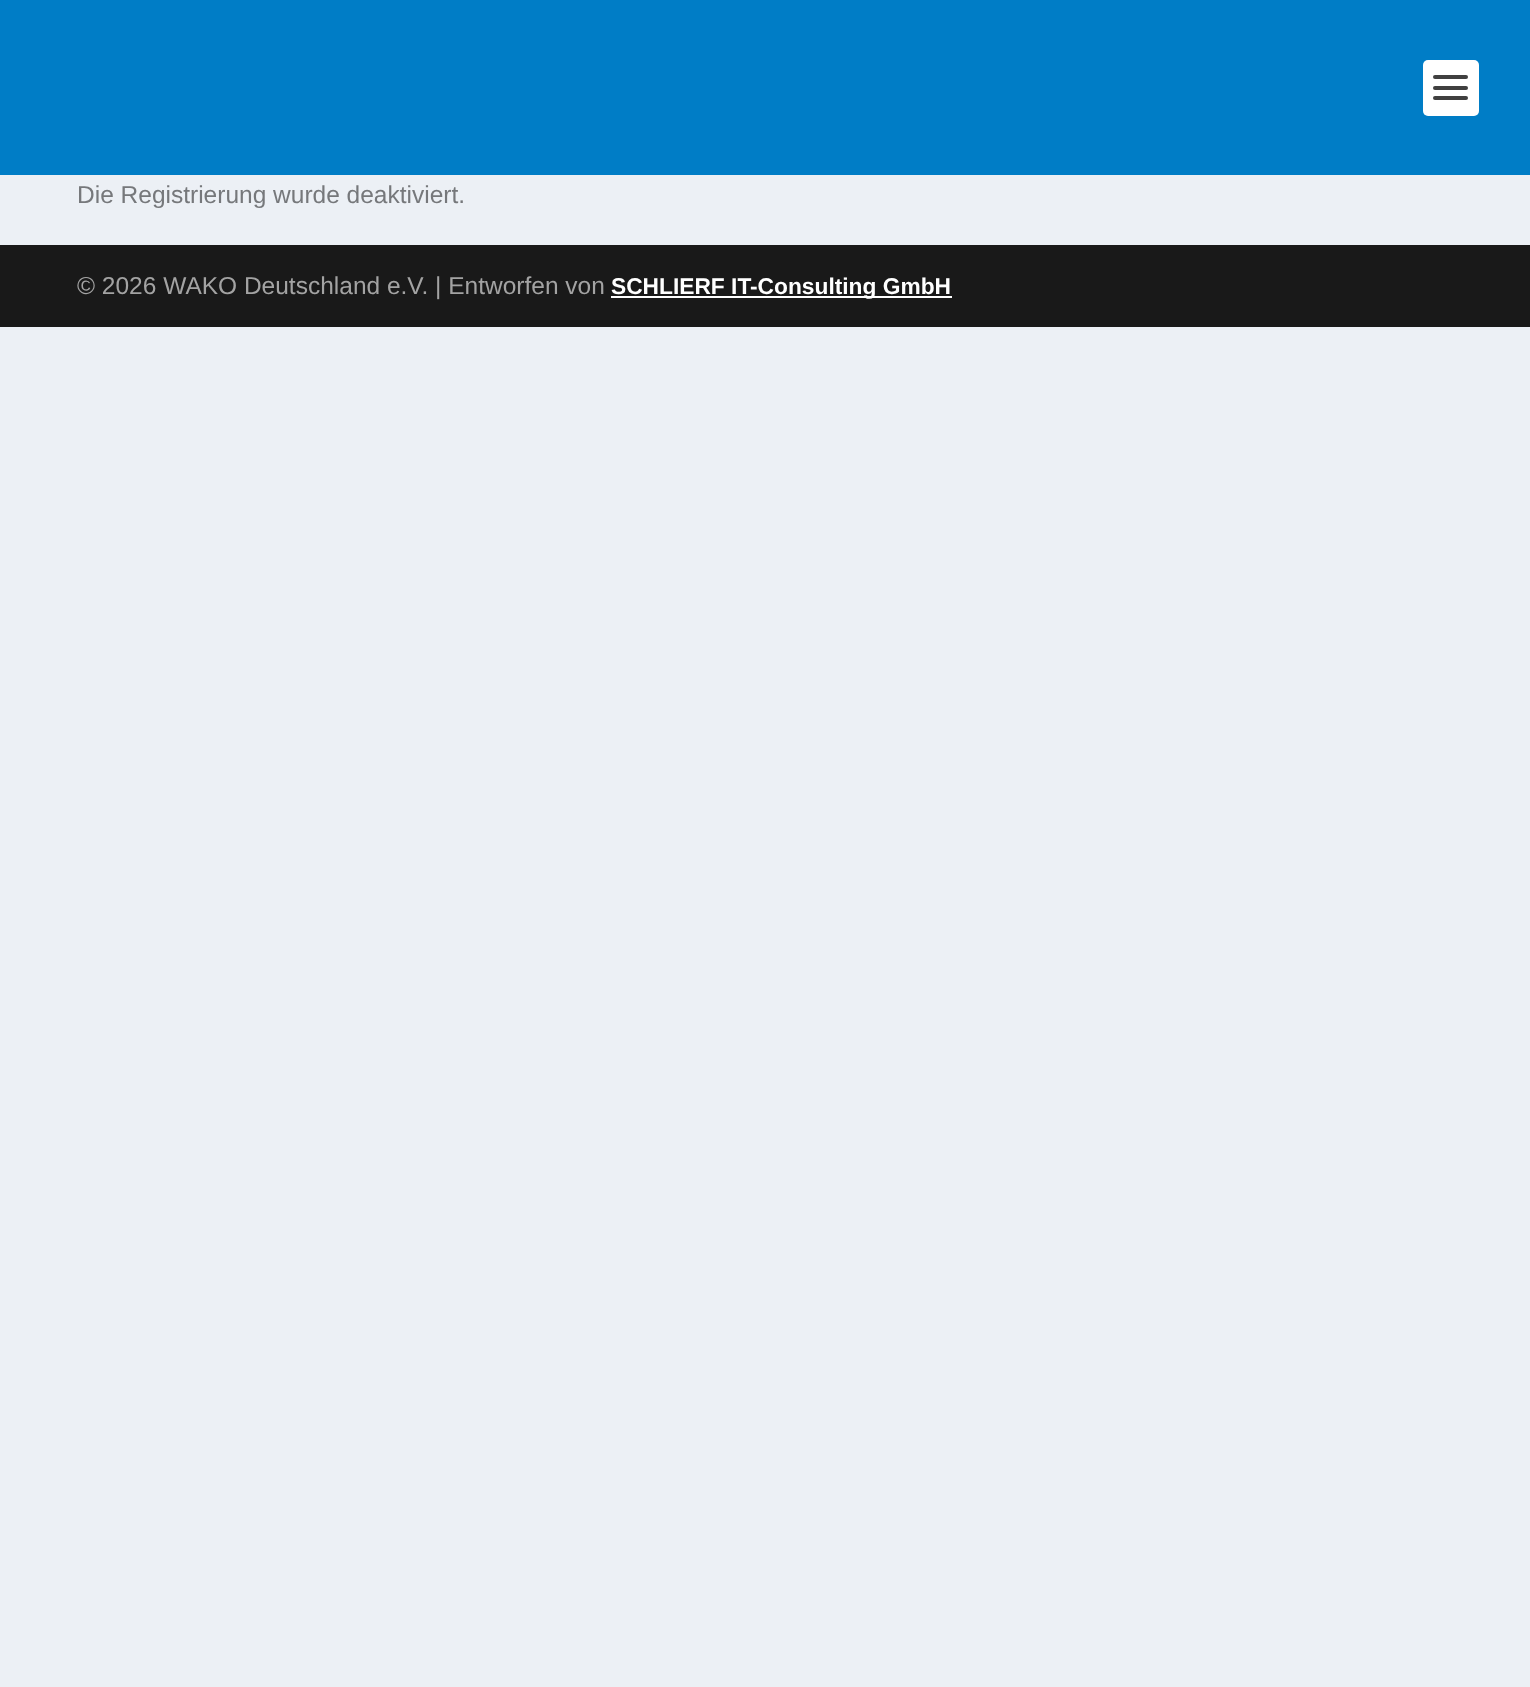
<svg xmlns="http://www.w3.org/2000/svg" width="1530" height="1687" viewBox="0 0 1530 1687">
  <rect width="100%" height="100%" fill="rgb(236,240,245)"/>
  <rect x="0" y="0" width="1530" height="175" fill="rgb(0,125,198)"/>
  <rect x="1423" y="60" width="56" height="56" rx="5" fill="rgb(255,255,255)"/>
  <rect x="1433" y="75" width="35" height="4" rx="2" fill="rgb(64,64,64)"/>
  <rect x="1433" y="86" width="35" height="4" rx="2" fill="rgb(64,64,64)"/>
  <rect x="1433" y="96" width="35" height="4" rx="2" fill="rgb(64,64,64)"/>
  <text x="77" y="203" font-family="Liberation Sans" font-size="24.5" fill="rgb(118,120,123)">Die Registrierung wurde deaktiviert.</text>
  <rect x="0" y="245" width="1530" height="82" fill="rgb(25,25,25)"/>
  <text x="77" y="294" font-family="Liberation Sans" font-size="24.5" fill="rgb(163,163,163)">© 2026 WAKO Deutschland e.V. | Entworfen von</text>
  <rect x="611" y="296" width="341" height="2" fill="rgb(255,255,255)"/>
  <text x="611" y="294" font-family="Liberation Sans" font-size="22.75" font-weight="bold" fill="rgb(255,255,255)">SCHLIERF IT-Consulting GmbH</text>
</svg>
